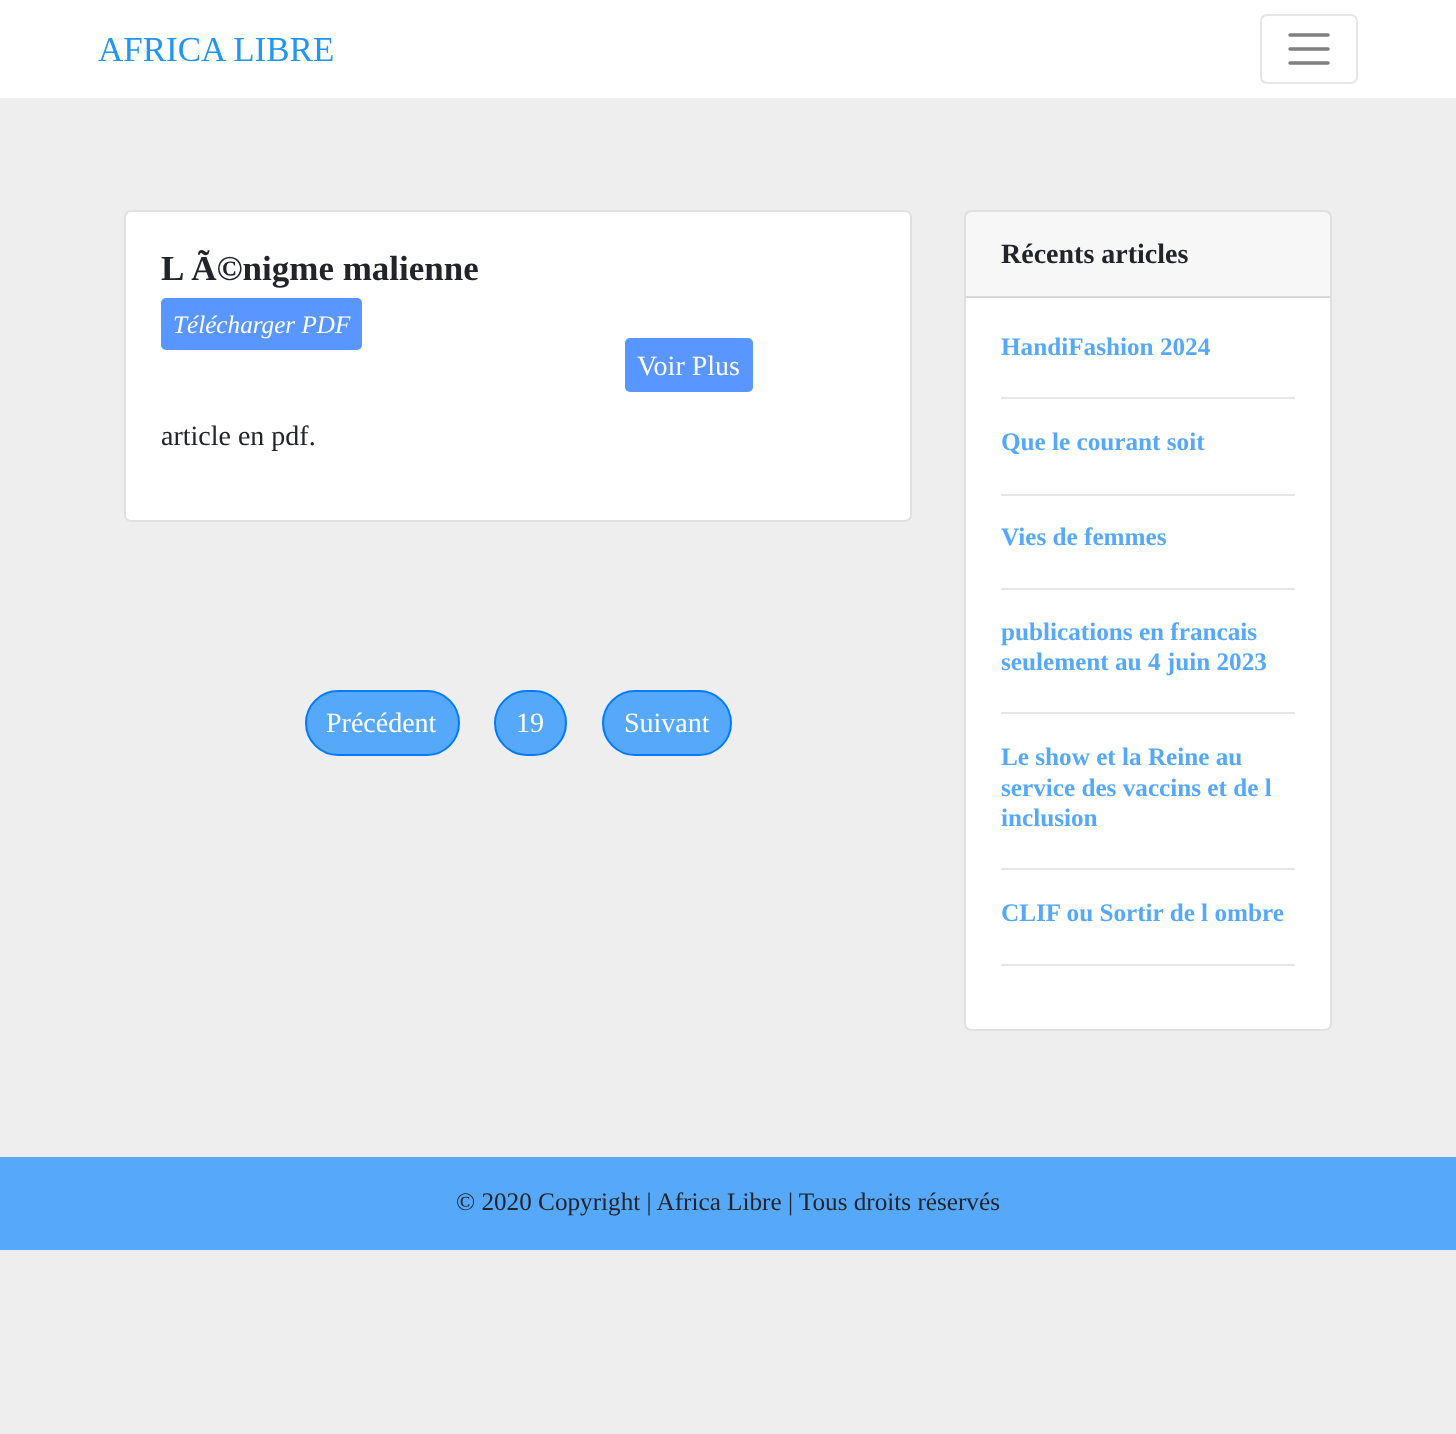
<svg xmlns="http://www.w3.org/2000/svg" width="1456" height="1434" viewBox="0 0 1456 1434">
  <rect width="100%" height="100%" fill="rgb(238,238,238)"/>
  <rect x="0" y="0" width="1456" height="98" fill="rgb(255,255,255)"/>
  <text x="98" y="61" font-family="Liberation Serif" font-size="35" fill="rgb(33,150,243)">AFRICA LIBRE</text>
  <rect x="1261" y="15" width="96" height="68" rx="6" fill="none" stroke="rgb(230,230,230)" stroke-width="2"/>
  <path d="M1290 35H1328M1290 49H1328M1290 63H1328" fill="none" stroke="rgb(128,128,128)" stroke-width="3.5" stroke-linecap="round"/>
  <rect x="124" y="210" width="788" height="312" rx="7" fill="rgb(255,255,255)"/>
  <rect x="125" y="211" width="786" height="310" rx="6" fill="none" stroke="rgba(0,0,0,0.12)" stroke-width="2"/>
  <text x="161" y="280" font-family="Liberation Serif" font-size="35" font-weight="bold" fill="rgb(33,37,41)">L Ã©nigme malienne</text>
  <rect x="161" y="298" width="201" height="52" rx="5" fill="rgb(90,150,255)"/>
  <text x="173" y="333" font-family="Liberation Serif" font-size="25.2" font-style="italic" fill="rgb(255,255,255)">Télécharger PDF</text>
  <rect x="625" y="338" width="128" height="54" rx="5" fill="rgb(90,150,255)"/>
  <text x="637" y="375" font-family="Liberation Serif" font-size="28" fill="rgb(255,255,255)">Voir Plus</text>
  <text x="161" y="445" font-family="Liberation Serif" font-size="28" fill="rgb(33,37,41)">article en pdf.</text>
  <rect x="306" y="691" width="153" height="64" rx="32" fill="rgb(86,168,250)" stroke="rgb(0,123,255)" stroke-width="2"/>
  <text x="326" y="732" font-family="Liberation Serif" font-size="28" fill="rgb(255,255,255)">Précédent</text>
  <rect x="495" y="691" width="71" height="64" rx="32" fill="rgb(86,168,250)" stroke="rgb(0,123,255)" stroke-width="2"/>
  <text x="516" y="732" font-family="Liberation Serif" font-size="28" fill="rgb(255,255,255)">19</text>
  <rect x="603" y="691" width="128" height="64" rx="32" fill="rgb(86,168,250)" stroke="rgb(0,123,255)" stroke-width="2"/>
  <text x="624" y="732" font-family="Liberation Serif" font-size="28" fill="rgb(255,255,255)">Suivant</text>
  <rect x="964" y="210" width="368" height="821" rx="7" fill="rgb(255,255,255)"/>
  <rect x="965" y="211" width="366" height="819" rx="6" fill="none" stroke="rgba(0,0,0,0.12)" stroke-width="2"/>
  <rect x="966" y="212" width="364" height="84" fill="rgba(0,0,0,0.03)"/>
  <rect x="966" y="296" width="364" height="2" fill="rgb(216,216,216)"/>
  <text x="1001" y="263" font-family="Liberation Serif" font-size="28" font-weight="bold" fill="rgb(33,37,41)">Récents articles</text>
  <text x="1001" y="355" font-family="Liberation Serif" font-size="25.2" font-weight="bold" fill="rgb(86,168,250)">HandiFashion 2024</text>
  <rect x="1001" y="397" width="294" height="2" fill="rgb(230,230,230)"/>
  <text x="1001" y="450" font-family="Liberation Serif" font-size="25.2" font-weight="bold" fill="rgb(86,168,250)">Que le courant soit</text>
  <rect x="1001" y="494" width="294" height="2" fill="rgb(230,230,230)"/>
  <text x="1001" y="545" font-family="Liberation Serif" font-size="25.2" font-weight="bold" fill="rgb(86,168,250)">Vies de femmes</text>
  <rect x="1001" y="588" width="294" height="2" fill="rgb(230,230,230)"/>
  <g font-family="Liberation Serif" font-size="25.2" font-weight="bold" fill="rgb(86,168,250)">
    <text>
      <tspan x="1001" y="640">publications en francais</tspan>
      <tspan x="1001" y="670">seulement au 4 juin 2023</tspan>
    </text>
  </g>
  <rect x="1001" y="712" width="294" height="2" fill="rgb(230,230,230)"/>
  <g font-family="Liberation Serif" font-size="25.2" font-weight="bold" fill="rgb(86,168,250)">
    <text>
      <tspan x="1001" y="765">Le show et la Reine au</tspan>
      <tspan x="1001" y="796">service des vaccins et de l</tspan>
      <tspan x="1001" y="826">inclusion</tspan>
    </text>
  </g>
  <rect x="1001" y="868" width="294" height="2" fill="rgb(230,230,230)"/>
  <text x="1001" y="921" font-family="Liberation Serif" font-size="25.2" font-weight="bold" fill="rgb(86,168,250)">CLIF ou Sortir de l ombre</text>
  <rect x="1001" y="964" width="294" height="2" fill="rgb(230,230,230)"/>
  <rect x="0" y="1157" width="1456" height="93" fill="rgb(86,168,250)"/>
  <text x="456" y="1210" font-family="Liberation Serif" font-size="25.2" fill="rgb(33,37,41)">© 2020 Copyright | Africa Libre | Tous droits réservés</text>
</svg>
